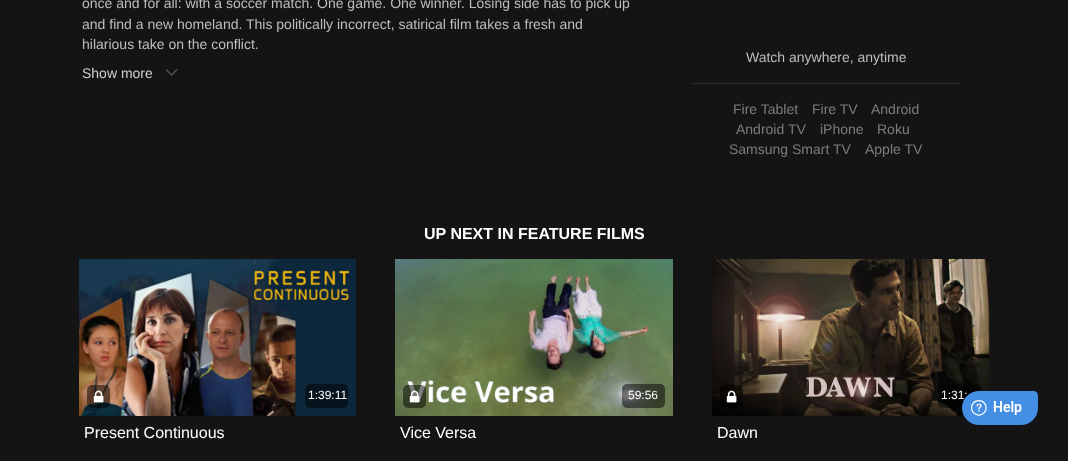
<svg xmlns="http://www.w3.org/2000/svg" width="1068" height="461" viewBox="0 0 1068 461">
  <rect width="100%" height="100%" fill="rgb(20,20,20)"/>
  <g font-family="Liberation Sans" font-size="14" fill="rgb(190,190,187)">
    <text>
      <tspan x="82" y="8">once and for all: with a soccer match. One game. One winner. Losing side has to pick up</tspan>
      <tspan x="82" y="29">and find a new homeland. This politically incorrect, satirical film takes a fresh and</tspan>
      <tspan x="82" y="49">hilarious take on the conflict.</tspan>
    </text>
  </g>
  <text x="82" y="78" font-family="Liberation Sans" font-size="14" fill="rgb(208,208,208)">Show more</text>
  <image x="165" y="69" width="13" height="7" href="pic1.png"/>
  <rect x="693" y="83" width="266" height="1" fill="rgb(50,50,50)"/>
  <text x="746" y="62" font-family="Liberation Sans" font-size="14" fill="rgb(190,190,187)">Watch anywhere, anytime</text>
  <g font-family="Liberation Sans" font-size="14" fill="rgb(124,124,124)">
    <text x="733" y="114">Fire Tablet</text>
    <text x="812" y="114">Fire TV</text>
    <text x="871" y="114">Android</text>
    <text x="736" y="134">Android TV</text>
    <text x="820" y="134">iPhone</text>
    <text x="877" y="134">Roku</text>
    <text x="729" y="154">Samsung Smart TV</text>
    <text x="865" y="154">Apple TV</text>
  </g>
  <text x="424" y="239" font-family="Liberation Sans" font-size="16" font-weight="bold" fill="rgb(255,255,255)">UP NEXT IN FEATURE FILMS</text>
  <image x="79" y="259" width="277" height="157" href="pic2.png"/>
  <rect x="87" y="385" width="23" height="23" rx="5" fill="rgba(0,0,0,0.5)"/>
  <image x="93" y="390" width="11" height="13" href="pic3.png"/>
  <rect x="305" y="384" width="43" height="24" rx="5" fill="rgb(7,20,30)"/>
  <text x="308" y="399" font-family="Liberation Sans" font-size="12" fill="rgb(255,255,255)">1:39:11</text>
  <text x="84" y="438" font-family="Liberation Sans" font-size="16" fill="rgb(255,255,255)">Present Continuous</text>
  <image x="395" y="259" width="278" height="157" href="pic4.png"/>
  <rect x="403" y="385" width="23" height="23" rx="5" fill="rgba(0,0,0,0.5)"/>
  <image x="409" y="390" width="11" height="13" href="pic5.png"/>
  <rect x="622" y="384" width="43" height="24" rx="5" fill="rgba(0,0,0,0.5)"/>
  <text x="628" y="399" font-family="Liberation Sans" font-size="12" fill="rgb(255,255,255)">59:56</text>
  <text x="400" y="438" font-family="Liberation Sans" font-size="16" fill="rgb(255,255,255)">Vice Versa</text>
  <image x="712" y="259" width="278" height="157" href="pic6.png"/>
  <rect x="720" y="385" width="23" height="23" rx="5" fill="rgba(0,0,0,0.5)"/>
  <image x="726" y="390" width="11" height="13" href="pic7.png"/>
  <rect x="938" y="384" width="43" height="24" rx="5" fill="rgba(0,0,0,0.5)"/>
  <text x="941" y="399" font-family="Liberation Sans" font-size="12" fill="rgb(255,255,255)">1:31:</text>
  <text x="717" y="438" font-family="Liberation Sans" font-size="16" fill="rgb(255,255,255)">Dawn</text>
  <image x="962" y="391" width="76" height="34" href="pic8.png"/>
</svg>
